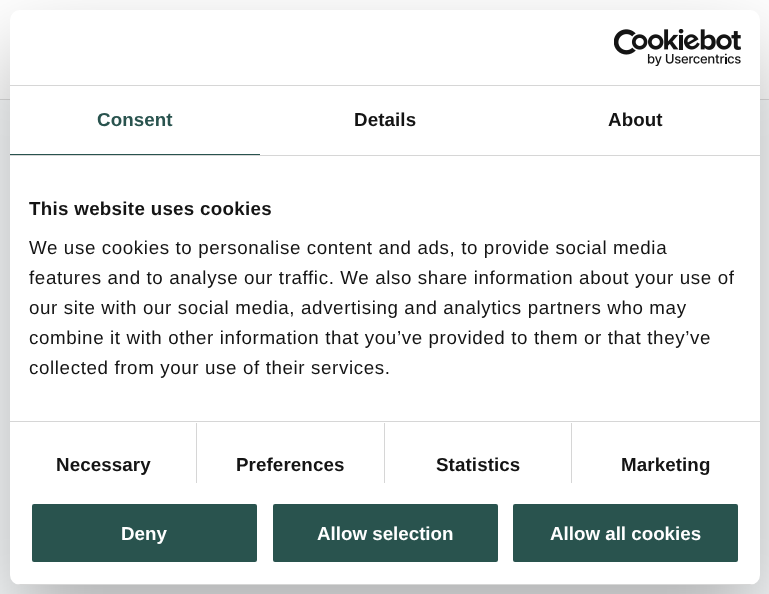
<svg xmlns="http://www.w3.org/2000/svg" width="769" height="594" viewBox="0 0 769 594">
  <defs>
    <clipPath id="clip1"><rect x="10" y="10" width="750" height="575" rx="10"/></clipPath>
  </defs>
  <rect width="100%" height="100%" fill="rgb(250,252,253)"/>
  <rect x="0" y="0" width="769" height="99" fill="rgb(255,255,255)"/>
  <rect x="0" y="99" width="769" height="1" fill="rgb(221,221,221)"/>
  <rect x="10" y="50" width="750" height="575" rx="10" fill="rgba(0,0,0,0.3)" filter="blur(42.5px)"/>
  <rect x="10" y="10" width="750" height="575" rx="10" fill="rgb(255,255,255)"/>
  <rect x="10" y="85" width="750" height="1" fill="rgb(214,214,214)"/>
  <image x="614" y="29" width="127" height="37" href="pic1.png"/>
  <rect x="10" y="155" width="750" height="1" fill="rgb(214,214,214)"/>
  <rect x="10" y="154" width="250" height="1" fill="rgb(41,83,78)"/>
  <text x="97" y="126" font-family="Liberation Sans" font-size="18.75" font-weight="bold" letter-spacing="0.1" fill="rgb(41,83,78)">Consent</text>
  <g font-family="Liberation Sans" font-size="18.75" font-weight="bold" letter-spacing="0.1" fill="rgb(20,20,20)">
    <text x="354" y="126">Details</text>
    <text x="608" y="126">About</text>
  </g>
  <rect x="10" y="421" width="750" height="1" fill="rgb(214,214,214)"/>
  <text x="29" y="215" font-family="Liberation Sans" font-size="18.75" font-weight="bold" letter-spacing="0.3" fill="rgb(20,20,20)">This website uses cookies</text>
  <g font-family="Liberation Sans" font-size="18.75" letter-spacing="0.62" fill="rgb(20,20,20)">
    <text>
      <tspan x="29" y="254">We use cookies to personalise content and ads, to provide social media</tspan>
      <tspan x="29" y="284">features and to analyse our traffic. We also share information about your use of</tspan>
      <tspan x="29" y="314">our site with our social media, advertising and analytics partners who may</tspan>
      <tspan x="29" y="344">combine it with other information that you’ve provided to them or that they’ve</tspan>
      <tspan x="29" y="374">collected from your use of their services.</tspan>
    </text>
  </g>
  <rect x="196" y="423" width="1" height="60" fill="rgb(214,214,214)"/>
  <text x="56" y="471" font-family="Liberation Sans" font-size="18.75" font-weight="bold" letter-spacing="0.1" fill="rgb(20,20,20)">Necessary</text>
  <rect x="384" y="423" width="1" height="60" fill="rgb(214,214,214)"/>
  <text x="236" y="471" font-family="Liberation Sans" font-size="18.75" font-weight="bold" letter-spacing="0.1" fill="rgb(20,20,20)">Preferences</text>
  <rect x="571" y="423" width="1" height="60" fill="rgb(214,214,214)"/>
  <g font-family="Liberation Sans" font-size="18.75" font-weight="bold" letter-spacing="0.1" fill="rgb(20,20,20)">
    <text x="436" y="471">Statistics</text>
    <text x="621" y="471">Marketing</text>
  </g>
  <g clip-path="url(#clip1)">
    <rect x="10" y="584" width="750" height="1" fill="rgb(214,214,214)"/>
  </g>
  <rect x="30.5" y="502.5" width="228" height="61" rx="3.5" fill="rgb(41,83,78)" stroke="rgb(255,255,255)" stroke-width="3"/>
  <text x="121" y="540" font-family="Liberation Sans" font-size="18.75" font-weight="bold" fill="rgb(255,255,255)">Deny</text>
  <rect x="271.5" y="502.5" width="228" height="61" rx="3.5" fill="rgb(41,83,78)" stroke="rgb(255,255,255)" stroke-width="3"/>
  <text x="317" y="540" font-family="Liberation Sans" font-size="18.75" font-weight="bold" fill="rgb(255,255,255)">Allow selection</text>
  <rect x="511.5" y="502.5" width="228" height="61" rx="3.5" fill="rgb(41,83,78)" stroke="rgb(255,255,255)" stroke-width="3"/>
  <text x="550" y="540" font-family="Liberation Sans" font-size="18.75" font-weight="bold" fill="rgb(255,255,255)">Allow all cookies</text>
</svg>
